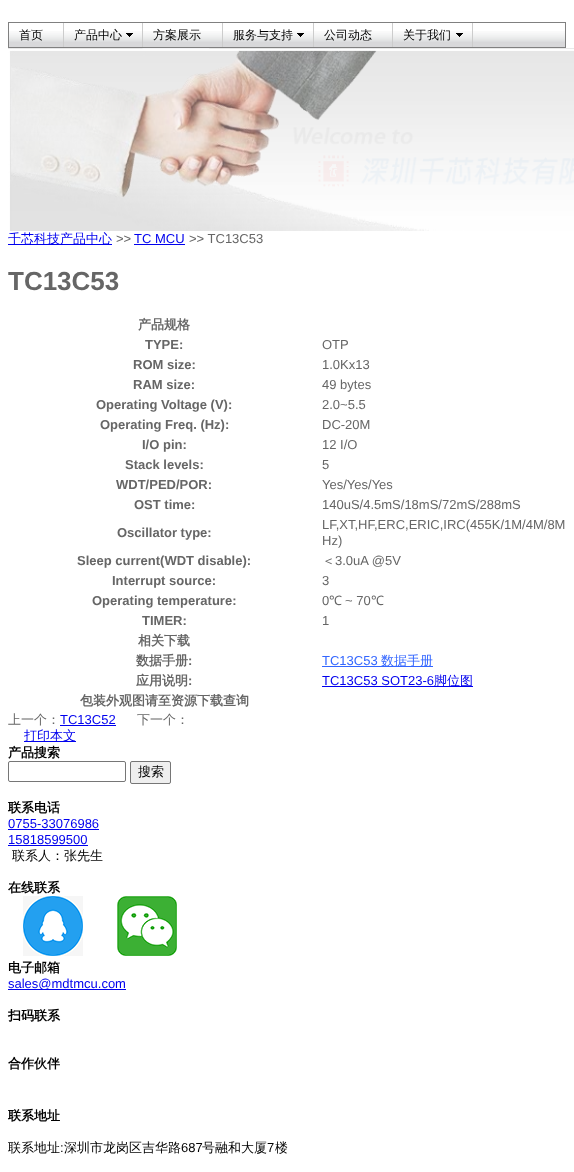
<svg xmlns="http://www.w3.org/2000/svg" width="574" height="1172" viewBox="0 0 574 1172">
  <rect width="100%" height="100%" fill="rgb(255,255,255)"/>
  <image x="9" y="31" width="556" height="16" href="pic1.png"/>
  <rect x="8.5" y="22.5" width="557" height="25" fill="none" stroke="rgb(128,128,128)"/>
  <rect x="63" y="23" width="1" height="24" fill="rgb(204,204,204)"/>
  <text x="19" y="39" font-family="WenQuanYi Zen Hei" font-size="12" font-weight="500" fill="rgb(0,0,0)">首页</text>
  <rect x="142" y="23" width="1" height="24" fill="rgb(204,204,204)"/>
  <image x="126" y="33" width="7" height="4" href="pic2.png"/>
  <text x="74" y="39" font-family="WenQuanYi Zen Hei" font-size="12" font-weight="500" fill="rgb(0,0,0)">产品中心</text>
  <rect x="222" y="23" width="1" height="24" fill="rgb(204,204,204)"/>
  <text x="153" y="39" font-family="WenQuanYi Zen Hei" font-size="12" font-weight="500" fill="rgb(0,0,0)">方案展示</text>
  <rect x="313" y="23" width="1" height="24" fill="rgb(204,204,204)"/>
  <image x="297" y="33" width="7" height="4" href="pic2.png"/>
  <text x="233" y="39" font-family="WenQuanYi Zen Hei" font-size="12" font-weight="500" fill="rgb(0,0,0)">服务与支持</text>
  <rect x="392" y="23" width="1" height="24" fill="rgb(204,204,204)"/>
  <text x="324" y="39" font-family="WenQuanYi Zen Hei" font-size="12" font-weight="500" fill="rgb(0,0,0)">公司动态</text>
  <rect x="472" y="23" width="1" height="24" fill="rgb(204,204,204)"/>
  <image x="456" y="33" width="7" height="4" href="pic2.png"/>
  <text x="403" y="39" font-family="WenQuanYi Zen Hei" font-size="12" font-weight="500" fill="rgb(0,0,0)">关于我们</text>
  <image x="8" y="48" width="566" height="183" href="pic3.png"/>
  <rect x="8" y="244" width="104" height="1" fill="rgb(0,0,238)"/>
  <text x="8" y="243" font-family="WenQuanYi Zen Hei" font-size="13" font-weight="500" fill="rgb(0,0,238)">千芯科技产品中心</text>
  <text x="116" y="243" font-family="Liberation Sans" font-size="13" fill="rgb(102,102,102)">&gt;&gt;</text>
  <text x="134" y="243" font-family="Liberation Sans" font-size="13" fill="rgb(0,0,238)">TC MCU</text>
  <rect x="134" y="244" width="51" height="1" fill="rgb(0,0,238)"/>
  <text x="189" y="243" font-family="Liberation Sans" font-size="13" fill="rgb(102,102,102)">&gt;&gt; TC13C53</text>
  <text x="8" y="290" font-family="Liberation Sans" font-size="26" font-weight="bold" fill="rgb(102,102,102)">TC13C53</text>
  <text x="138" y="329" font-family="WenQuanYi Zen Hei" font-size="13" font-weight="bold" fill="rgb(102,102,102)">产品规格</text>
  <text x="145" y="349" font-family="Liberation Sans" font-size="13" font-weight="bold" fill="rgb(102,102,102)">TYPE:</text>
  <text x="322" y="349" font-family="Liberation Sans" font-size="13" fill="rgb(102,102,102)">OTP</text>
  <text x="133" y="369" font-family="Liberation Sans" font-size="13" font-weight="bold" fill="rgb(102,102,102)">ROM size:</text>
  <text x="322" y="369" font-family="Liberation Sans" font-size="13" fill="rgb(102,102,102)">1.0Kx13</text>
  <text x="133" y="389" font-family="Liberation Sans" font-size="13" font-weight="bold" fill="rgb(102,102,102)">RAM size:</text>
  <text x="322" y="389" font-family="Liberation Sans" font-size="13" fill="rgb(102,102,102)">49 bytes</text>
  <text x="96" y="409" font-family="Liberation Sans" font-size="13" font-weight="bold" fill="rgb(102,102,102)">Operating Voltage (V):</text>
  <text x="322" y="409" font-family="Liberation Sans" font-size="13" fill="rgb(102,102,102)">2.0~5.5</text>
  <text x="100" y="429" font-family="Liberation Sans" font-size="13" font-weight="bold" fill="rgb(102,102,102)">Operating Freq. (Hz):</text>
  <text x="322" y="429" font-family="Liberation Sans" font-size="13" fill="rgb(102,102,102)">DC-20M</text>
  <text x="142" y="449" font-family="Liberation Sans" font-size="13" font-weight="bold" fill="rgb(102,102,102)">I/O pin:</text>
  <text x="322" y="449" font-family="Liberation Sans" font-size="13" fill="rgb(102,102,102)">12 I/O</text>
  <text x="125" y="469" font-family="Liberation Sans" font-size="13" font-weight="bold" fill="rgb(102,102,102)">Stack levels:</text>
  <text x="322" y="469" font-family="Liberation Sans" font-size="13" fill="rgb(102,102,102)">5</text>
  <text x="116" y="489" font-family="Liberation Sans" font-size="13" font-weight="bold" fill="rgb(102,102,102)">WDT/PED/POR:</text>
  <text x="322" y="489" font-family="Liberation Sans" font-size="13" fill="rgb(102,102,102)">Yes/Yes/Yes</text>
  <text x="134" y="509" font-family="Liberation Sans" font-size="13" font-weight="bold" fill="rgb(102,102,102)">OST time:</text>
  <text x="322" y="509" font-family="Liberation Sans" font-size="13" fill="rgb(102,102,102)">140uS/4.5mS/18mS/72mS/288mS</text>
  <text x="117" y="537" font-family="Liberation Sans" font-size="13" font-weight="bold" fill="rgb(102,102,102)">Oscillator type:</text>
  <g font-family="Liberation Sans" font-size="13" fill="rgb(102,102,102)">
    <text>
      <tspan x="322" y="529">LF,XT,HF,ERC,ERIC,IRC(455K/1M/4M/8M</tspan>
      <tspan x="322" y="545">Hz)</tspan>
    </text>
  </g>
  <text x="77" y="565" font-family="Liberation Sans" font-size="13" font-weight="bold" fill="rgb(102,102,102)">Sleep current(WDT disable):</text>
  <text x="322" y="565" font-family="WenQuanYi Zen Hei" font-size="13" font-weight="500" fill="rgb(102,102,102)">＜</text>
  <text x="335" y="565" font-family="Liberation Sans" font-size="13" fill="rgb(102,102,102)">3.0uA @5V</text>
  <text x="112" y="585" font-family="Liberation Sans" font-size="13" font-weight="bold" fill="rgb(102,102,102)">Interrupt source:</text>
  <text x="322" y="585" font-family="Liberation Sans" font-size="13" fill="rgb(102,102,102)">3</text>
  <text x="92" y="605" font-family="Liberation Sans" font-size="13" font-weight="bold" fill="rgb(102,102,102)">Operating temperature:</text>
  <text x="322" y="605" font-family="Liberation Sans" font-size="13" fill="rgb(102,102,102)">0</text>
  <text x="329" y="605" font-family="Noto Sans" font-size="13" fill="rgb(102,102,102)">℃</text>
  <text x="345" y="605" font-family="Liberation Sans" font-size="13" fill="rgb(102,102,102)">~ 70</text>
  <text x="371" y="605" font-family="Noto Sans" font-size="13" fill="rgb(102,102,102)">℃</text>
  <text x="142" y="625" font-family="Liberation Sans" font-size="13" font-weight="bold" fill="rgb(102,102,102)">TIMER:</text>
  <text x="322" y="625" font-family="Liberation Sans" font-size="13" fill="rgb(102,102,102)">1</text>
  <g font-family="WenQuanYi Zen Hei" font-size="13" font-weight="bold" fill="rgb(102,102,102)">
    <text x="138" y="645">相关下载</text>
    <text x="136" y="665">数据手册</text>
  </g>
  <text x="188" y="665" font-family="Liberation Sans" font-size="13" font-weight="bold" fill="rgb(102,102,102)">:</text>
  <text x="322" y="665" font-family="Liberation Sans" font-size="13" fill="rgb(51,102,255)">TC13C53</text>
  <rect x="322" y="666" width="111" height="1" fill="rgb(51,102,255)"/>
  <text x="381" y="665" font-family="WenQuanYi Zen Hei" font-size="13" font-weight="500" fill="rgb(51,102,255)">数据手册</text>
  <text x="136" y="685" font-family="WenQuanYi Zen Hei" font-size="13" font-weight="bold" fill="rgb(102,102,102)">应用说明</text>
  <text x="188" y="685" font-family="Liberation Sans" font-size="13" font-weight="bold" fill="rgb(102,102,102)">:</text>
  <text x="322" y="685" font-family="Liberation Sans" font-size="13" fill="rgb(0,0,238)">TC13C53 SOT23-6</text>
  <rect x="322" y="686" width="151" height="1" fill="rgb(0,0,238)"/>
  <text x="434" y="685" font-family="WenQuanYi Zen Hei" font-size="13" font-weight="500" fill="rgb(0,0,238)">脚位图</text>
  <text x="80" y="705" font-family="WenQuanYi Zen Hei" font-size="13" font-weight="bold" fill="rgb(102,102,102)">包装外观图请至资源下载查询</text>
  <text x="8" y="724" font-family="WenQuanYi Zen Hei" font-size="13" font-weight="500" fill="rgb(102,102,102)">上一个：</text>
  <text x="60" y="724" font-family="Liberation Sans" font-size="13" fill="rgb(0,0,238)">TC13C52</text>
  <rect x="60" y="725" width="56" height="1" fill="rgb(0,0,238)"/>
  <text x="137" y="724" font-family="WenQuanYi Zen Hei" font-size="13" font-weight="500" fill="rgb(102,102,102)">下一个：</text>
  <rect x="24" y="741" width="52" height="1" fill="rgb(0,0,238)"/>
  <text x="24" y="740" font-family="WenQuanYi Zen Hei" font-size="13" font-weight="500" fill="rgb(0,0,238)">打印本文</text>
  <text x="8" y="757" font-family="WenQuanYi Zen Hei" font-size="13" font-weight="bold" fill="rgb(0,0,0)">产品搜索</text>
  <rect x="8.5" y="761.5" width="117" height="20" rx="1.5" fill="none" stroke="rgb(118,118,118)"/>
  <rect x="130.5" y="761.5" width="40" height="22" rx="1.5" fill="rgb(239,239,239)" stroke="rgb(118,118,118)"/>
  <text x="138" y="776" font-family="WenQuanYi Zen Hei" font-size="13" font-weight="500" fill="rgb(0,0,0)">搜索</text>
  <text x="8" y="812" font-family="WenQuanYi Zen Hei" font-size="13" font-weight="bold" fill="rgb(0,0,0)">联系电话</text>
  <text x="8" y="828" font-family="Liberation Sans" font-size="13" fill="rgb(0,0,238)">0755-33076986</text>
  <rect x="8" y="829" width="91" height="1" fill="rgb(0,0,238)"/>
  <text x="8" y="844" font-family="Liberation Sans" font-size="13" fill="rgb(0,0,238)">15818599500</text>
  <rect x="8" y="845" width="80" height="1" fill="rgb(0,0,238)"/>
  <text x="12" y="860" font-family="WenQuanYi Zen Hei" font-size="13" font-weight="500" fill="rgb(0,0,0)">联系人：张先生</text>
  <text x="8" y="892" font-family="WenQuanYi Zen Hei" font-size="13" font-weight="bold" fill="rgb(0,0,0)">在线联系</text>
  <image x="23" y="896" width="60" height="60" href="pic4.png"/>
  <image x="117" y="896" width="60" height="60" href="pic5.png"/>
  <text x="8" y="972" font-family="WenQuanYi Zen Hei" font-size="13" font-weight="bold" fill="rgb(0,0,0)">电子邮箱</text>
  <rect x="8" y="989" width="118" height="1" fill="rgb(0,0,238)"/>
  <text x="8" y="988" font-family="Liberation Sans" font-size="13" fill="rgb(0,0,238)">sales@mdtmcu.com</text>
  <g font-family="WenQuanYi Zen Hei" font-size="13" font-weight="bold" fill="rgb(0,0,0)">
    <text x="8" y="1020">扫码联系</text>
    <text x="8" y="1068">合作伙伴</text>
    <text x="8" y="1120">联系地址</text>
  </g>
  <text x="8" y="1152" font-family="WenQuanYi Zen Hei" font-size="13" font-weight="500" fill="rgb(0,0,0)">联系地址 深圳市龙岗区吉华路</text>
  <text x="181" y="1152" font-family="Liberation Sans" font-size="13" fill="rgb(0,0,0)">687</text>
  <text x="202" y="1152" font-family="WenQuanYi Zen Hei" font-size="13" font-weight="500" fill="rgb(0,0,0)">号融和大厦</text>
  <text x="267" y="1152" font-family="Liberation Sans" font-size="13" fill="rgb(0,0,0)">7</text>
  <text x="275" y="1152" font-family="WenQuanYi Zen Hei" font-size="13" font-weight="500" fill="rgb(0,0,0)">楼</text>
  <text x="60" y="1152" font-family="Liberation Sans" font-size="13" fill="rgb(0,0,0)">:</text>
</svg>
